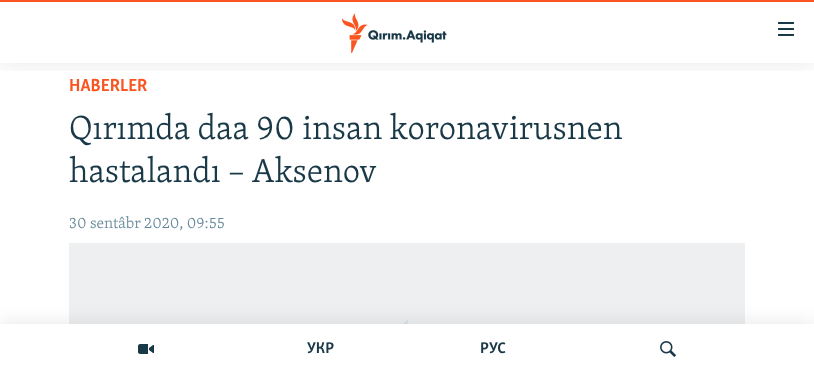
<svg xmlns="http://www.w3.org/2000/svg" width="814" height="374" viewBox="0 0 814 374">
  <defs>
    <clipPath id="clip1"><rect x="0" y="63" width="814" height="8"/></clipPath>
  </defs>
  <rect width="100%" height="100%" fill="rgb(255,255,255)"/>
  <text x="69" y="91" font-family="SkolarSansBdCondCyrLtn" font-size="18" font-weight="bold" fill="rgb(250,84,32)">HABERLER</text>
  <g font-family="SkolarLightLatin" font-size="34.25" font-weight="300" fill="rgb(26,57,72)">
    <text>
      <tspan x="69" y="139">Qırımda daa 90 insan koronavirusnen</tspan>
      <tspan x="69" y="182">hastalandı – Aksenov</tspan>
    </text>
  </g>
  <text x="69" y="228" font-family="SkolarLightLatin" font-size="15.75" font-weight="300" fill="rgb(103,138,155)">30 sentâbr 2020, 09:55</text>
  <rect x="69" y="243" width="676" height="81" fill="rgb(237,239,240)"/>
  <image x="404" y="319" width="5" height="5" href="pic1.png"/>
  <g clip-path="url(#clip1)">
    <rect x="0" y="0" width="814" height="63" fill="rgba(0,0,0,0.1)" filter="blur(10px)"/>
  </g>
  <rect x="0" y="0" width="814" height="2" fill="rgb(250,84,32)"/>
  <image x="342" y="13" width="105" height="40" href="pic2.png"/>
  <image x="778" y="22" width="16" height="14" href="pic3.png"/>
  <rect x="0" y="324" width="814" height="50" fill="rgba(0,0,0,0.1)" filter="blur(10px)"/>
  <rect x="0" y="324" width="814" height="50" fill="rgb(255,255,255)"/>
  <image x="138" y="344" width="16" height="10" href="pic4.png"/>
  <g font-family="SkolarSansBdCondCyrLtn" font-size="16" font-weight="bold" fill="rgb(26,57,72)">
    <text x="307" y="353">УКР</text>
    <text x="480" y="353">РУС</text>
  </g>
  <image x="660" y="341" width="16" height="16" href="pic5.png"/>
</svg>
